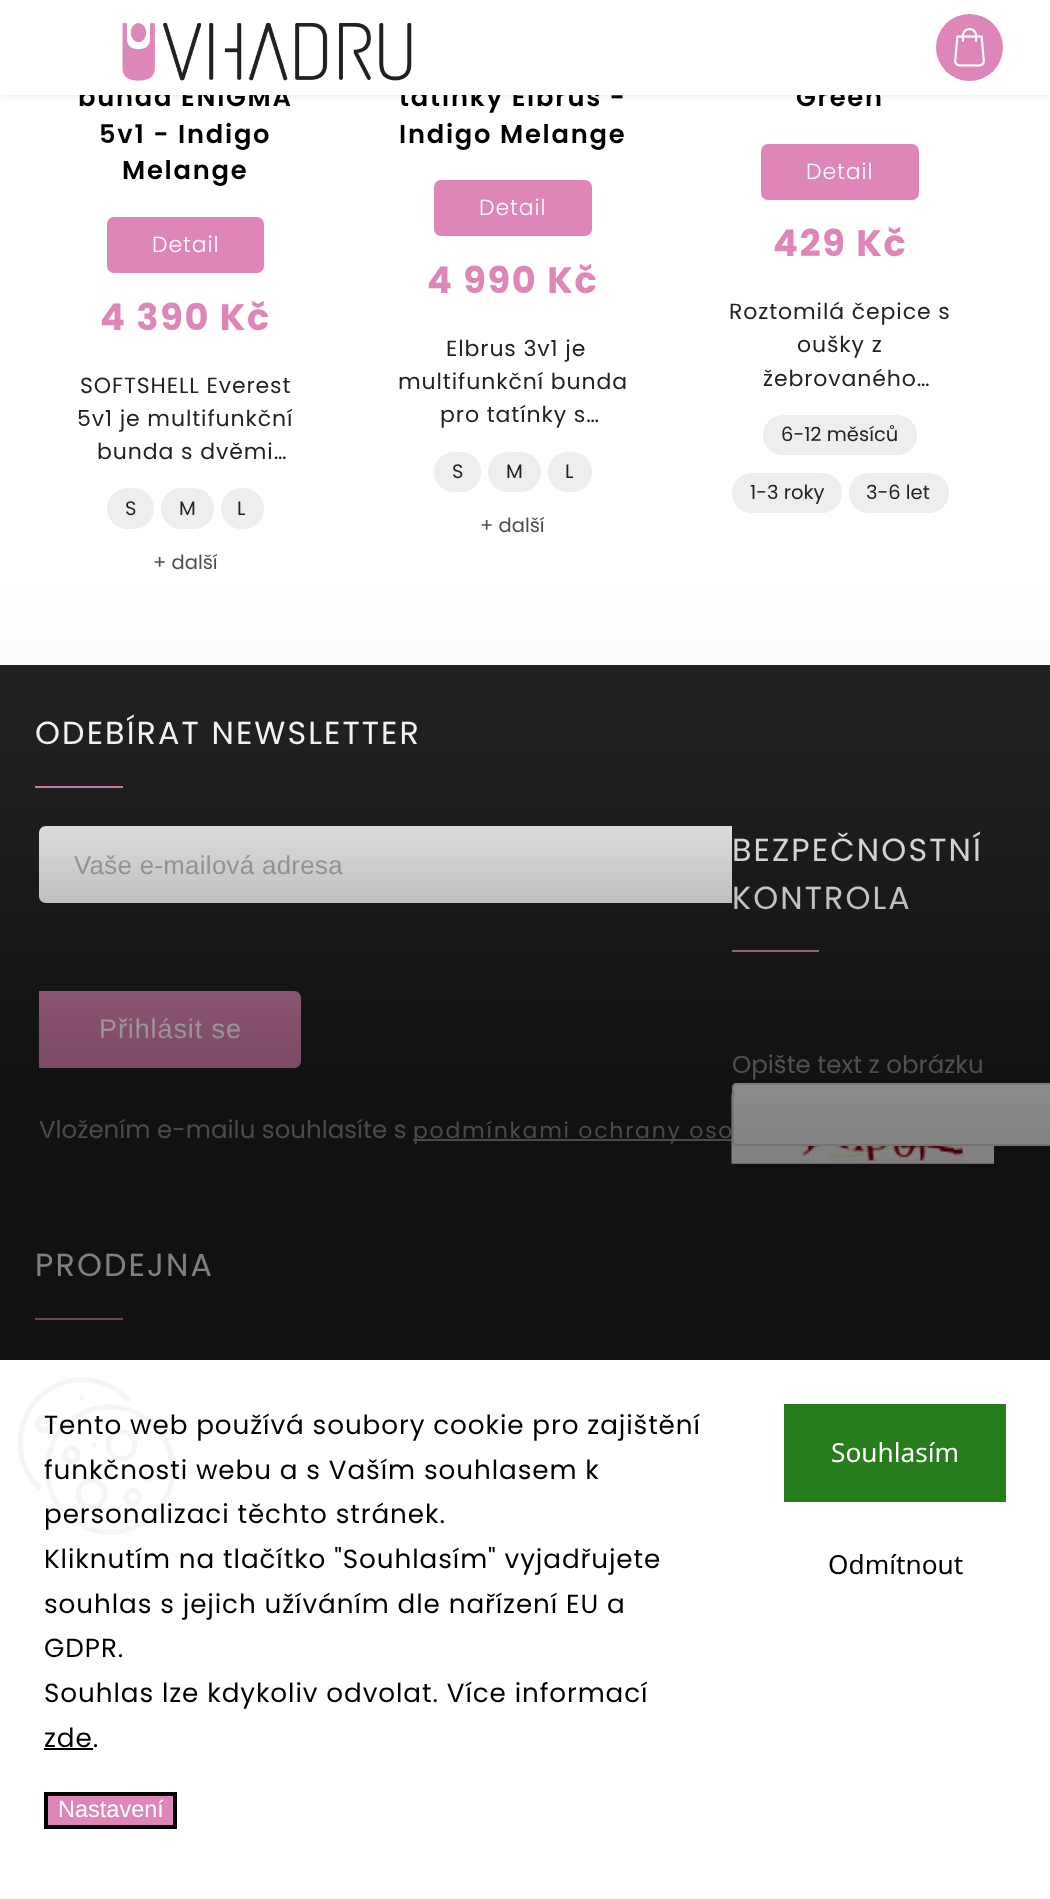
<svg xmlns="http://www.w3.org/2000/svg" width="1050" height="1899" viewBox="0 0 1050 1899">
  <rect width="100%" height="100%" fill="rgb(255,255,255)"/>
  <rect x="0" y="-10" width="1050" height="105" fill="rgba(0,0,0,0.1)" filter="blur(4.5px)"/>
  <g font-family="Poppins" font-size="25.75" font-weight="600" letter-spacing="1.75" fill="rgb(0,0,0)">
    <text x="78" y="106">bunda ENIGMA</text>
    <text x="399" y="106">tatínky Elbrus -</text>
    <text x="796" y="106">Green</text>
  </g>
  <rect x="0" y="0" width="1050" height="95" fill="rgb(255,255,255)"/>
  <image x="122" y="22" width="290" height="59" href="pic1.png"/>
  <circle cx="969.5" cy="47.5" r="33.5" fill="rgb(222,134,184)"/>
  <image x="954" y="28" width="31" height="39" href="pic2.png"/>
  <g font-family="Poppins" font-size="25.75" font-weight="600" letter-spacing="1.75" fill="rgb(0,0,0)">
    <text x="99" y="143">5v1 - Indigo</text>
    <text x="122" y="179">Melange</text>
  </g>
  <rect x="107" y="217" width="157" height="56" rx="7" fill="rgb(222,134,184)"/>
  <text x="152" y="252" font-family="Poppins" font-size="22" font-weight="300" letter-spacing="0.9" fill="rgb(255,255,255)">Detail</text>
  <text x="100" y="330" font-family="Poppins" font-size="36.75" font-weight="bold" letter-spacing="1.75" fill="rgb(222,134,184)">4 390 Kč</text>
  <g font-family="Poppins" font-size="22" letter-spacing="0.9" fill="rgb(34,34,34)">
    <text x="80" y="393">SOFTSHELL Everest</text>
    <text x="77" y="426">5v1 je multifunkční</text>
    <text x="97" y="459">bunda s dvěmi…</text>
  </g>
  <rect x="107" y="488" width="47" height="41" rx="20.5" fill="rgb(238,238,237)"/>
  <text x="125" y="515" font-family="Poppins" font-size="19.5" fill="rgb(34,34,34)">S</text>
  <rect x="161" y="488" width="53" height="41" rx="20.5" fill="rgb(238,238,237)"/>
  <text x="179" y="515" font-family="Poppins" font-size="19.5" fill="rgb(34,34,34)">M</text>
  <rect x="221" y="488" width="43" height="41" rx="20.5" fill="rgb(238,238,237)"/>
  <text x="237" y="515" font-family="Poppins" font-size="19.5" fill="rgb(34,34,34)">L</text>
  <text x="153" y="569" font-family="Poppins" font-size="19.5" fill="rgb(78,78,78)">+ další</text>
  <text x="399" y="143" font-family="Poppins" font-size="25.75" font-weight="600" letter-spacing="1.75" fill="rgb(0,0,0)">Indigo Melange</text>
  <rect x="434" y="180" width="158" height="56" rx="7" fill="rgb(222,134,184)"/>
  <text x="479" y="215" font-family="Poppins" font-size="22" font-weight="300" letter-spacing="0.9" fill="rgb(255,255,255)">Detail</text>
  <text x="427" y="293" font-family="Poppins" font-size="36.75" font-weight="bold" letter-spacing="1.75" fill="rgb(222,134,184)">4 990 Kč</text>
  <g font-family="Poppins" font-size="22" letter-spacing="0.9" fill="rgb(34,34,34)">
    <text x="446" y="356">Elbrus 3v1 je</text>
    <text x="398" y="389">multifunkční bunda</text>
    <text x="440" y="422">pro tatínky s…</text>
  </g>
  <rect x="434" y="452" width="47" height="40" rx="20" fill="rgb(238,238,237)"/>
  <text x="452" y="478" font-family="Poppins" font-size="19.5" fill="rgb(34,34,34)">S</text>
  <rect x="488" y="452" width="53" height="40" rx="20" fill="rgb(238,238,237)"/>
  <text x="506" y="478" font-family="Poppins" font-size="19.5" fill="rgb(34,34,34)">M</text>
  <rect x="548" y="452" width="44" height="40" rx="20" fill="rgb(238,238,237)"/>
  <text x="565" y="478" font-family="Poppins" font-size="19.5" fill="rgb(34,34,34)">L</text>
  <text x="480" y="532" font-family="Poppins" font-size="19.5" fill="rgb(78,78,78)">+ další</text>
  <rect x="761" y="144" width="158" height="56" rx="7" fill="rgb(222,134,184)"/>
  <text x="806" y="179" font-family="Poppins" font-size="22" font-weight="300" letter-spacing="0.9" fill="rgb(255,255,255)">Detail</text>
  <text x="773" y="256" font-family="Poppins" font-size="36.75" font-weight="bold" letter-spacing="1.75" fill="rgb(222,134,184)">429 Kč</text>
  <g font-family="Poppins" font-size="22" letter-spacing="0.9" fill="rgb(34,34,34)">
    <text x="729" y="319">Roztomilá čepice s</text>
    <text x="797" y="352">oušky z</text>
    <text x="763" y="386">žebrovaného…</text>
  </g>
  <rect x="763" y="415" width="154" height="40" rx="20" fill="rgb(238,238,237)"/>
  <text x="781" y="441" font-family="Poppins" font-size="19.5" fill="rgb(34,34,34)">6-12 měsíců</text>
  <rect x="732" y="473" width="110" height="40" rx="20" fill="rgb(238,238,237)"/>
  <text x="750" y="499" font-family="Poppins" font-size="19.5" fill="rgb(34,34,34)">1-3 roky</text>
  <rect x="849" y="473" width="100" height="40" rx="20" fill="rgb(238,238,237)"/>
  <text x="866" y="499" font-family="Poppins" font-size="19.5" fill="rgb(34,34,34)">3-6 let</text>
  <rect x="0" y="665" width="1050" height="695" fill="rgb(34,34,34)"/>
  <text x="35" y="744" font-family="Poppins" font-size="31.8" letter-spacing="2.1" fill="rgb(255,255,255)">ODEBÍRAT NEWSLETTER</text>
  <rect x="35" y="786" width="88" height="2" fill="rgb(222,134,184)"/>
  <path d="M46 826H732V903H46C42 903 39 900 39 896V833C39 829 42 826 46 826Z" fill="rgb(255,255,255)"/>
  <text x="74" y="874" font-family="Liberation Sans" font-size="25.75" letter-spacing="0.35" fill="rgb(182,182,182)">Vaše e-mailová adresa</text>
  <g font-family="Poppins" font-size="31.8" letter-spacing="2.1" fill="rgb(255,255,255)">
    <text>
      <tspan x="732" y="861">BEZPEČNOSTNÍ</tspan>
      <tspan x="732" y="909">KONTROLA</tspan>
    </text>
  </g>
  <rect x="732" y="950" width="87" height="2" fill="rgb(222,134,184)"/>
  <text x="732" y="1073" font-family="Poppins" font-size="24.5" fill="rgb(144,144,144)">Opište text z obrázku</text>
  <rect x="413" y="1139" width="319" height="2" fill="rgb(144,144,144)"/>
  <text x="413" y="1138" font-family="Poppins" font-size="22" letter-spacing="1.75" fill="rgb(144,144,144)">podmínkami ochrany oso</text>
  <image x="731" y="1093" width="263" height="71" href="pic3.png"/>
  <path d="M737 1083H1050V1146H737C734 1146 732 1144 732 1141V1088C732 1085 734 1083 737 1083Z" fill="rgb(255,255,255)"/>
  <rect x="733" y="1084" width="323" height="61" rx="4" fill="none" stroke="rgb(223,223,223)" stroke-width="2"/>
  <path d="M39 991H294C298 991 301 994 301 998V1061C301 1065 298 1068 294 1068H39Z" fill="rgb(222,134,184)"/>
  <text x="99" y="1038" font-family="Liberation Sans" font-size="27" letter-spacing="0.9" fill="rgb(255,255,255)">Přihlásit se</text>
  <text x="39" y="1138" font-family="Poppins" font-size="24.5" fill="rgb(144,144,144)">Vložením e-mailu souhlasíte s</text>
  <text x="35" y="1276" font-family="Poppins" font-size="31.8" letter-spacing="2.1" fill="rgb(255,255,255)">PRODEJNA</text>
  <rect x="35" y="1318" width="88" height="2" fill="rgb(222,134,184)"/>
  <rect x="-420" y="905" width="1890" height="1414" fill="rgba(0,0,0,0.5)" filter="blur(140px)"/>
  <rect x="0" y="1360" width="1050" height="539" fill="rgb(255,255,255)"/>
  <image x="18" y="1377" width="157" height="158" href="pic4.png"/>
  <g font-family="Poppins" font-size="26.25" letter-spacing="0.9" fill="rgb(0,0,0)">
    <text>
      <tspan x="44" y="1434">Tento web používá soubory cookie pro zajištění</tspan>
      <tspan x="44" y="1479">funkčnosti webu a s Vaším souhlasem k</tspan>
      <tspan x="44" y="1523">personalizaci těchto stránek.</tspan>
      <tspan x="44" y="1568">Kliknutím na tlačítko "Souhlasím" vyjadřujete</tspan>
      <tspan x="44" y="1613">souhlas s jejich užíváním dle nařízení EU a</tspan>
      <tspan x="44" y="1657">GDPR.</tspan>
      <tspan x="44" y="1702">Souhlas lze kdykoliv odvolat. Více informací</tspan>
      <tspan x="44" y="1747">zde.</tspan>
    </text>
  </g>
  <rect x="44" y="1748" width="49" height="2" fill="rgb(0,0,0)"/>
  <rect x="46" y="1794" width="129" height="33" fill="rgb(222,134,184)" stroke="rgb(0,0,0)" stroke-width="4"/>
  <text x="58" y="1817" font-family="Liberation Sans" font-size="23.5" fill="rgb(255,255,255)">Nastavení</text>
  <rect x="784" y="1404" width="222" height="98" fill="rgb(39,124,27)"/>
  <text x="831" y="1462" font-family="Noto Sans" font-size="26.25" fill="rgb(255,255,255)">Souhlasím</text>
  <text x="828" y="1574" font-family="Noto Sans" font-size="26.25" fill="rgb(0,0,0)">Odmítnout</text>
</svg>
